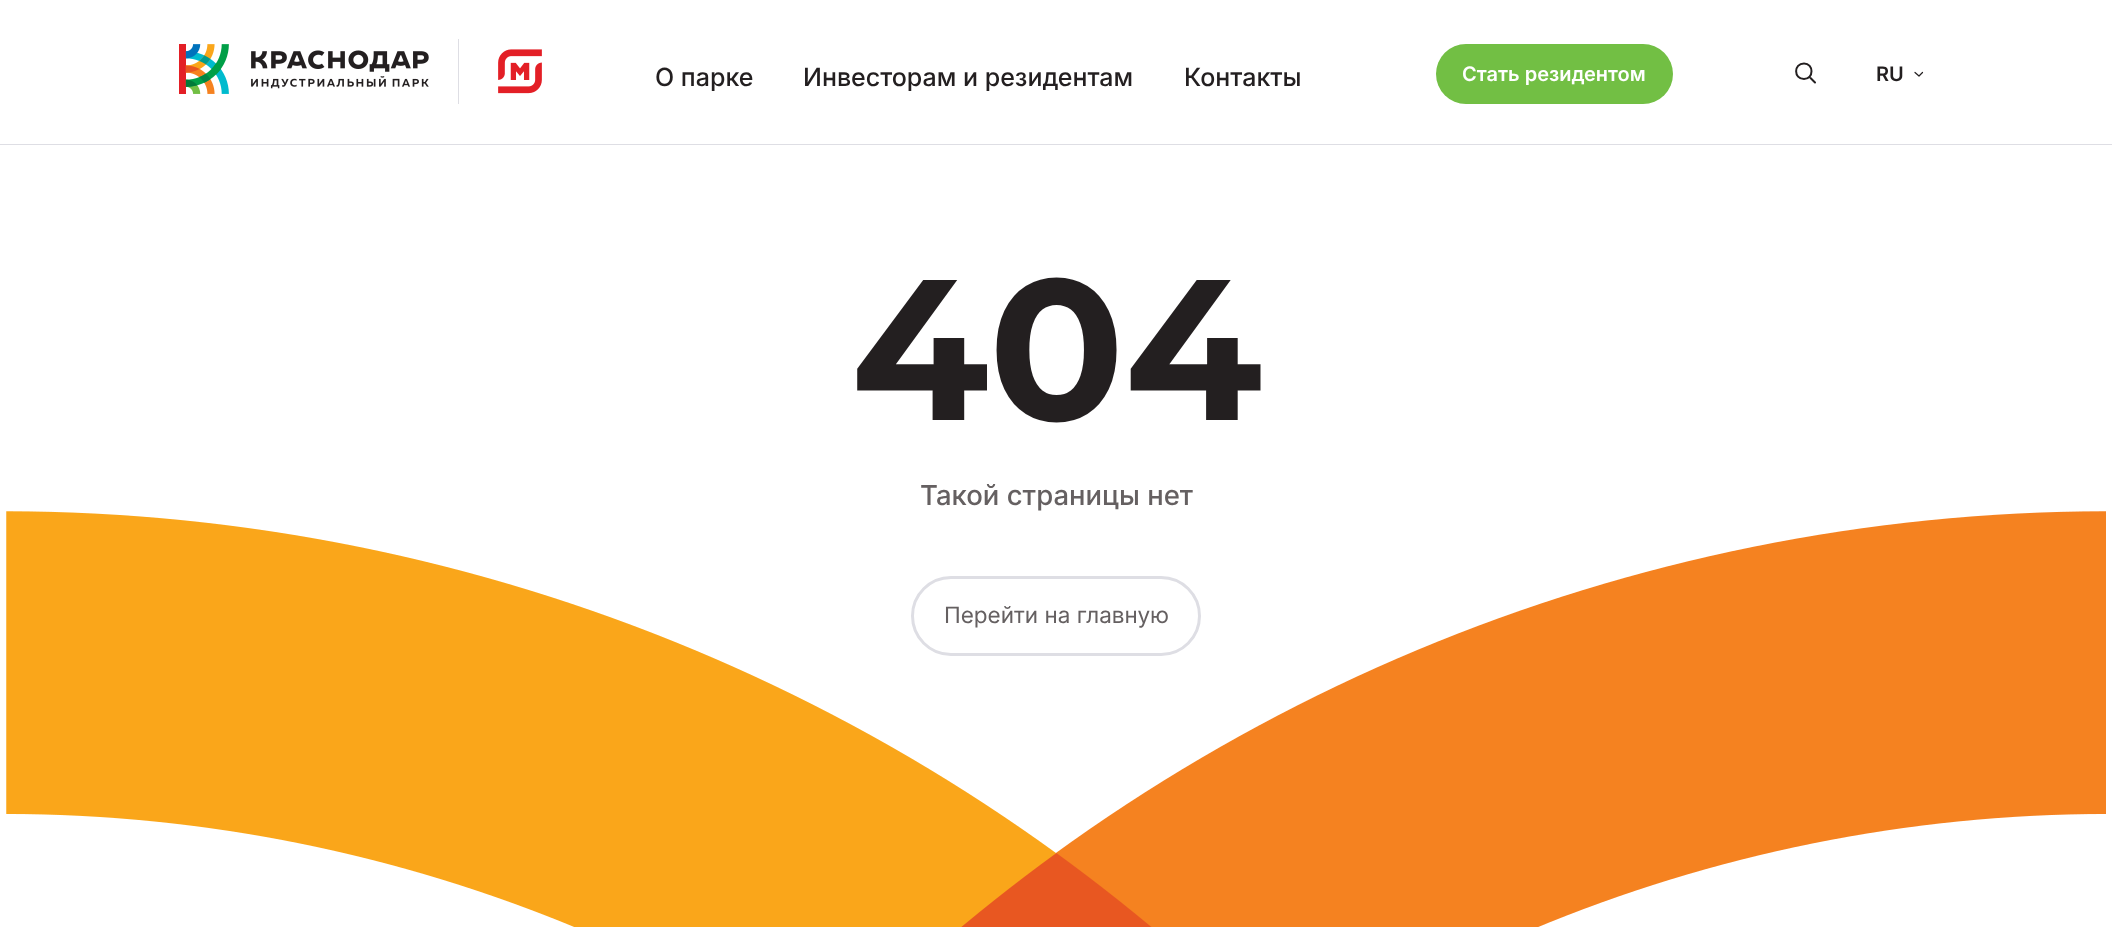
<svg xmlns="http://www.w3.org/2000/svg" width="2112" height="927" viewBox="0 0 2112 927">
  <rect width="100%" height="100%" fill="rgb(255,255,255)"/>
  <rect x="0" y="144" width="2112" height="1" fill="rgb(222,222,228)"/>
  <image x="179" y="44" width="250" height="50" href="pic1.png"/>
  <rect x="458" y="39" width="1" height="65" fill="rgb(222,222,228)"/>
  <image x="498" y="49" width="44" height="45" href="pic2.png"/>
  <g font-family="Inter" font-size="25" font-weight="500" fill="rgb(35,31,32)">
    <text x="655" y="86">О парке</text>
    <text x="803" y="86">Инвесторам и резидентам</text>
    <text x="1184" y="86">Контакты</text>
  </g>
  <rect x="1436" y="44" width="237" height="60" rx="30" fill="rgb(114,191,68)"/>
  <text x="1462" y="81" font-family="Inter" font-size="20" font-weight="600" fill="rgb(255,255,255)">Стать резидентом</text>
  <path d="M1804 63.5C1814 63.5 1814 79 1804 79C1793.5 79 1793.5 63.5 1804 63.5ZM1810.5 78L1815 82.5" fill="none" stroke="rgb(35,31,32)" stroke-width="2" stroke-linecap="round" stroke-linejoin="round"/>
  <text x="1876" y="81" font-family="Inter" font-size="20" font-weight="600" fill="rgb(35,31,32)">RU</text>
  <path d="M1922.5 72.5L1919 76L1915 72.5" fill="none" stroke="rgb(35,31,32)" stroke-width="1.2" stroke-linecap="round" stroke-linejoin="round"/>
  <image x="6" y="511" width="2100" height="416" href="pic3.png"/>
  <text x="851" y="420" font-family="Montserrat" font-size="200" font-weight="bold" fill="rgb(35,31,32)">404</text>
  <text x="920" y="505" font-family="Inter" font-size="27.5" font-weight="500" fill="rgb(101,96,97)">Такой страницы нет</text>
  <rect x="912.5" y="577.5" width="287" height="77" rx="38.5" fill="none" stroke="rgb(222,222,228)" stroke-width="3"/>
  <text x="944" y="623" font-family="Inter" font-size="22.5" fill="rgb(101,96,97)">Перейти на главную</text>
</svg>
